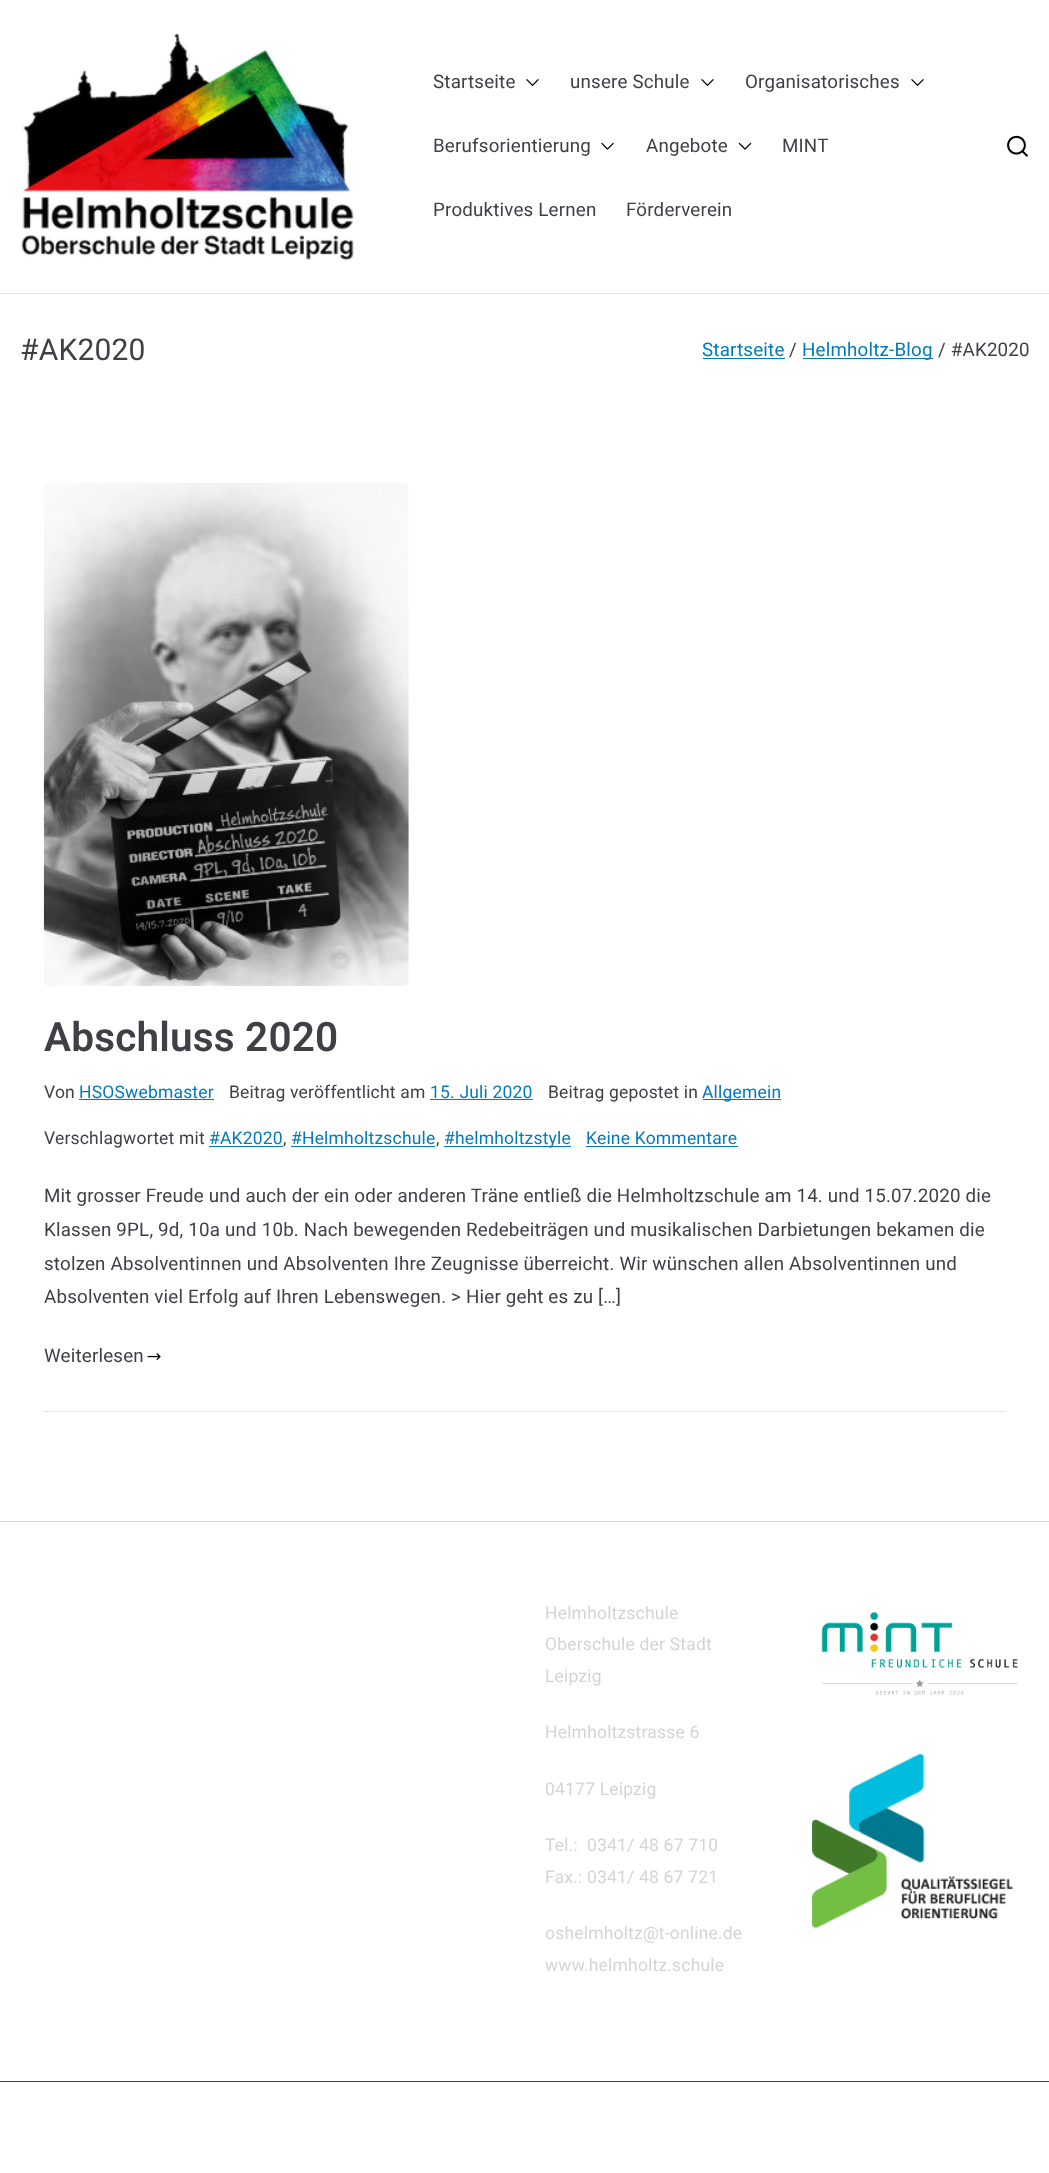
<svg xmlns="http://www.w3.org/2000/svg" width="1049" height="2173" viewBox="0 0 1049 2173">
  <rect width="100%" height="100%" fill="rgb(228,228,231)"/>
  <rect x="0" y="0" width="1049" height="293" fill="rgb(255,255,255)"/>
  <image x="21" y="33" width="333" height="228" href="pic1.png"/>
  <text x="433" y="88" font-family="Roboto" font-size="18.75" letter-spacing="0.19" fill="rgb(63,63,70)">Startseite</text>
  <image x="526" y="79" width="13" height="7" href="pic2.png"/>
  <text x="570" y="88" font-family="Roboto" font-size="18.75" letter-spacing="0.19" fill="rgb(63,63,70)">unsere Schule</text>
  <image x="701" y="79" width="13" height="7" href="pic2.png"/>
  <text x="745" y="88" font-family="Roboto" font-size="18.75" letter-spacing="0.19" fill="rgb(63,63,70)">Organisatorisches</text>
  <image x="911" y="79" width="13" height="7" href="pic2.png"/>
  <text x="433" y="152" font-family="Roboto" font-size="18.75" letter-spacing="0.19" fill="rgb(63,63,70)">Berufsorientierung</text>
  <image x="601" y="142" width="13" height="8" href="pic3.png"/>
  <text x="646" y="152" font-family="Roboto" font-size="18.75" letter-spacing="0.19" fill="rgb(63,63,70)">Angebote</text>
  <image x="738" y="142" width="14" height="8" href="pic4.png"/>
  <g font-family="Roboto" font-size="18.75" letter-spacing="0.19" fill="rgb(63,63,70)">
    <text x="782" y="152">MINT</text>
    <text x="433" y="216">Produktives Lernen</text>
    <text x="626" y="216">Förderverein</text>
  </g>
  <image x="1007" y="135" width="21" height="22" href="pic5.png"/>
  <rect x="0" y="294" width="1049" height="1227" fill="rgb(255,255,255)"/>
  <text x="20" y="360" font-family="Roboto" font-size="30" letter-spacing="0.19" fill="rgb(63,63,70)">#AK2020</text>
  <text x="702" y="356" font-family="Roboto" font-size="18.75" letter-spacing="0.19" fill="rgb(2,122,187)">Startseite</text>
  <rect x="703" y="358" width="82" height="1" fill="rgb(2,122,187)"/>
  <text x="789" y="356" font-family="Roboto" font-size="18.75" letter-spacing="0.19" fill="rgb(63,63,70)">/</text>
  <rect x="803" y="358" width="130" height="1" fill="rgb(2,122,187)"/>
  <text x="802" y="356" font-family="Roboto" font-size="18.75" letter-spacing="0.19" fill="rgb(2,122,187)">Helmholtz-Blog</text>
  <text x="938" y="356" font-family="Roboto" font-size="18.75" letter-spacing="0.19" fill="rgb(63,63,70)">/ #AK2020</text>
  <rect x="44" y="1411" width="962" height="1" fill="rgb(228,228,231)"/>
  <image x="43" y="482" width="366" height="504" href="pic6.png"/>
  <text x="44" y="1051" font-family="Roboto" font-size="40.5" font-weight="600" letter-spacing="0.19" fill="rgb(63,63,70)">Abschluss 2020</text>
  <text x="44" y="1098" font-family="Roboto" font-size="17.5" letter-spacing="0.19" fill="rgb(63,63,70)">Von</text>
  <text x="79" y="1098" font-family="Roboto" font-size="17.5" letter-spacing="0.19" fill="rgb(2,122,187)">HSOSwebmaster</text>
  <rect x="79" y="1099" width="135" height="1" fill="rgb(2,122,187)"/>
  <text x="229" y="1098" font-family="Roboto" font-size="17.5" letter-spacing="0.19" fill="rgb(63,63,70)">Beitrag veröffentlicht am</text>
  <text x="430" y="1098" font-family="Roboto" font-size="17.5" letter-spacing="0.19" fill="rgb(2,122,187)">15. Juli 2020</text>
  <rect x="430" y="1099" width="103" height="1" fill="rgb(2,122,187)"/>
  <text x="548" y="1098" font-family="Roboto" font-size="17.5" letter-spacing="0.19" fill="rgb(63,63,70)">Beitrag gepostet in</text>
  <rect x="703" y="1099" width="78" height="1" fill="rgb(2,122,187)"/>
  <text x="702" y="1098" font-family="Roboto" font-size="17.5" letter-spacing="0.19" fill="rgb(2,122,187)">Allgemein</text>
  <text x="44" y="1144" font-family="Roboto" font-size="17.5" letter-spacing="0.19" fill="rgb(63,63,70)">Verschlagwortet mit</text>
  <text x="209" y="1144" font-family="Roboto" font-size="17.5" letter-spacing="0.19" fill="rgb(2,122,187)">#AK2020</text>
  <rect x="209" y="1146" width="74" height="1" fill="rgb(2,122,187)"/>
  <text x="283" y="1144" font-family="Roboto" font-size="17.5" letter-spacing="0.19" fill="rgb(63,63,70)">,</text>
  <text x="291" y="1144" font-family="Roboto" font-size="17.5" letter-spacing="0.19" fill="rgb(2,122,187)">#Helmholtzschule</text>
  <rect x="291" y="1146" width="144" height="1" fill="rgb(2,122,187)"/>
  <text x="436" y="1144" font-family="Roboto" font-size="17.5" letter-spacing="0.19" fill="rgb(63,63,70)">,</text>
  <rect x="444" y="1146" width="127" height="1" fill="rgb(2,122,187)"/>
  <g font-family="Roboto" font-size="17.5" letter-spacing="0.19" fill="rgb(2,122,187)">
    <text x="444" y="1144">#helmholtzstyle</text>
    <text x="586" y="1144">Keine Kommentare</text>
  </g>
  <rect x="586" y="1146" width="152" height="1" fill="rgb(2,122,187)"/>
  <g font-family="Roboto" font-size="18.75" letter-spacing="0.19" fill="rgb(63,63,70)">
    <text>
      <tspan x="44" y="1202">Mit grosser Freude und auch der ein oder anderen Träne entließ die Helmholtzschule am 14. und 15.07.2020 die</tspan>
      <tspan x="44" y="1236">Klassen 9PL, 9d, 10a und 10b. Nach bewegenden Redebeiträgen und musikalischen Darbietungen bekamen die</tspan>
      <tspan x="44" y="1270">stolzen Absolventinnen und Absolventen Ihre Zeugnisse überreicht. Wir wünschen allen Absolventinnen und</tspan>
      <tspan x="44" y="1303">Absolventen viel Erfolg auf Ihren Lebenswegen. &gt; Hier geht es zu […]</tspan>
    </text>
    <text x="44" y="1362">Weiterlesen</text>
  </g>
  <image x="147" y="1353" width="14" height="7" href="pic7.png"/>
  <rect x="0" y="1522" width="1049" height="559" fill="rgb(255,255,255)"/>
  <rect x="0" y="1521" width="1049" height="1" fill="rgb(212,212,216)"/>
  <g font-family="Roboto" font-size="17.5" letter-spacing="0.19" fill="rgb(212,212,216)">
    <text>
      <tspan x="545" y="1619">Helmholtzschule</tspan>
      <tspan x="545" y="1650">Oberschule der Stadt</tspan>
      <tspan x="545" y="1682">Leipzig</tspan>
    </text>
    <text x="545" y="1738">Helmholtzstrasse 6</text>
    <text x="545" y="1795">04177 Leipzig</text>
    <text xml:space="preserve"><tspan x="545" y="1851">Tel.:  0341/ 48 67 710</tspan><tspan x="545" y="1883">Fax.: 0341/ 48 67 721</tspan></text>
    <text>
      <tspan x="545" y="1939">oshelmholtz@t-online.de</tspan>
      <tspan x="545" y="1971">www.helmholtz.schule</tspan>
    </text>
  </g>
  <image x="821" y="1612" width="197" height="83" href="pic8.png"/>
  <image x="812" y="1753" width="202" height="176" href="pic9.png"/>
  <rect x="0" y="2082" width="1049" height="91" fill="rgb(255,255,255)"/>
  <rect x="0" y="2081" width="1049" height="1" fill="rgb(63,63,70)"/>
</svg>
